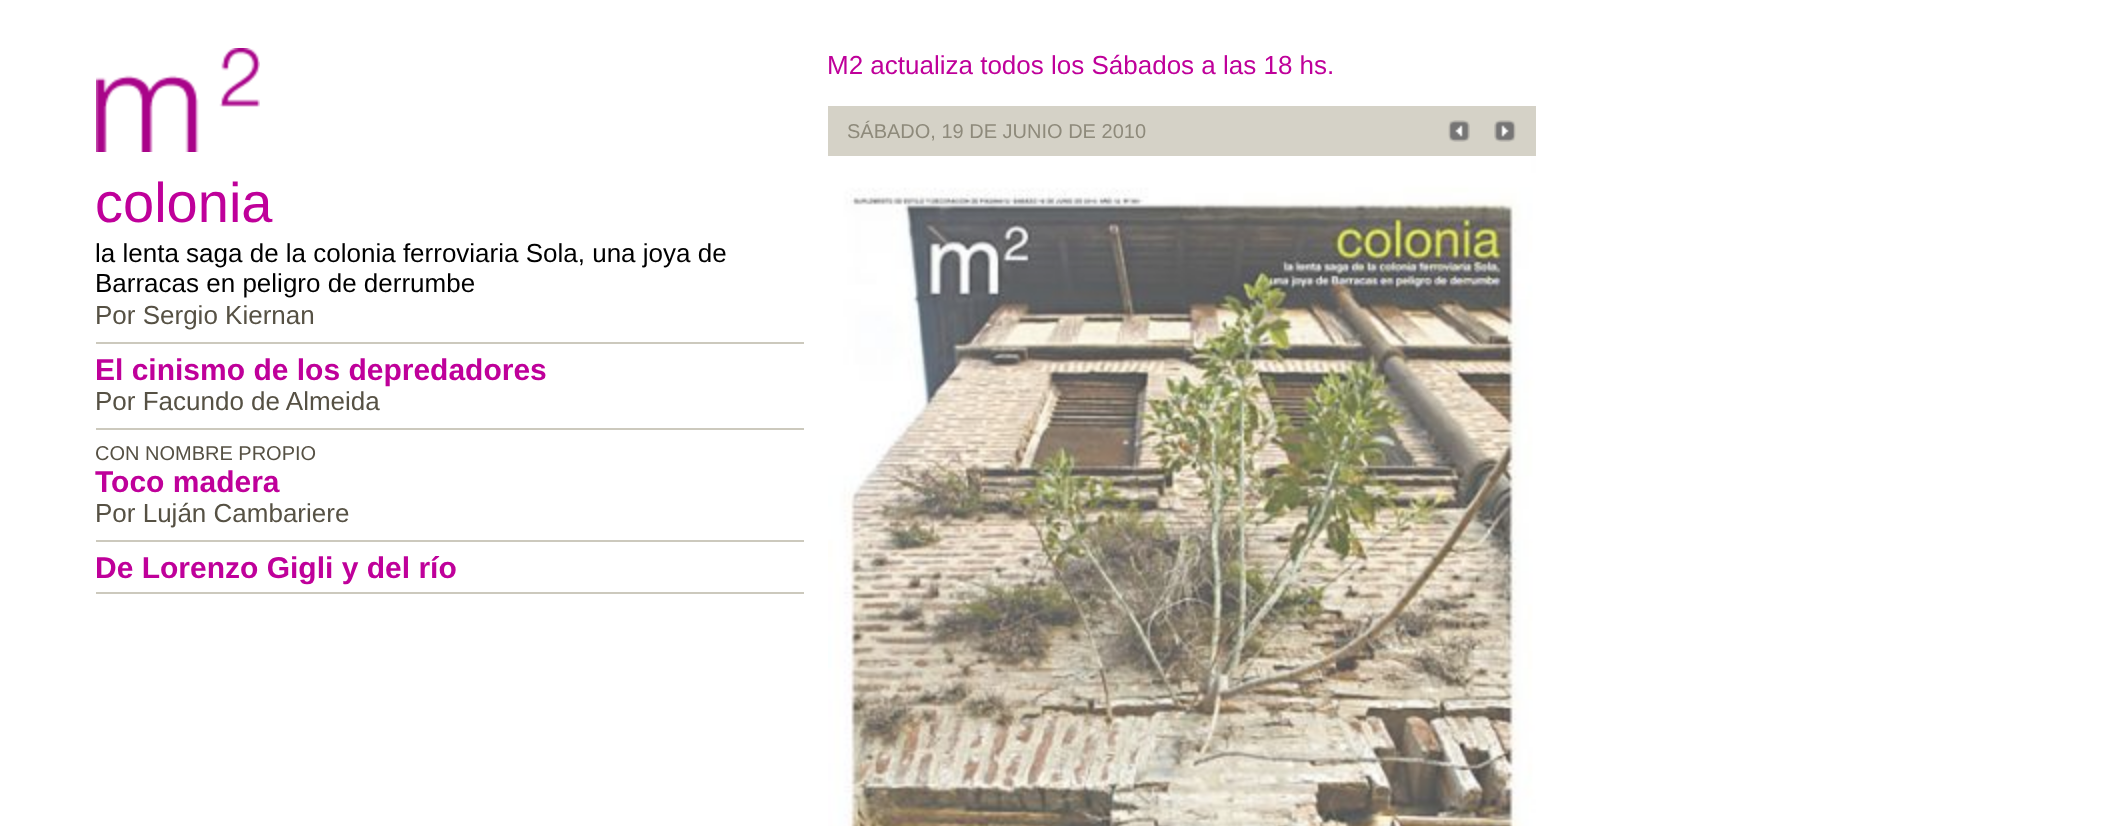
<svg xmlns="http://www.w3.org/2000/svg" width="2118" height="826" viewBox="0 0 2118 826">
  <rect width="100%" height="100%" fill="rgb(255,255,255)"/>
  <text x="827" y="74" font-family="Liberation Sans" font-size="26" fill="rgb(191,0,154)">M2 actualiza todos los Sábados a las 18 hs.</text>
  <rect x="828" y="106" width="708" height="50" fill="rgb(213,210,199)"/>
  <text x="847" y="138" font-family="Liberation Sans" font-size="20" fill="rgb(142,138,123)">SÁBADO, 19 DE JUNIO DE 2010</text>
  <image x="1448" y="120" width="22" height="22" href="pic1.png"/>
  <image x="1494" y="120" width="22" height="22" href="pic2.png"/>
  <image x="828" y="156" width="708" height="670" href="pic3.png"/>
  <image x="96" y="48" width="164" height="104" href="pic4.png"/>
  <rect x="96" y="342" width="708" height="2" fill="rgb(204,201,189)"/>
  <text x="95" y="222" font-family="Liberation Sans" font-size="56" fill="rgb(191,0,154)">colonia</text>
  <g font-family="Liberation Sans" font-size="26" fill="rgb(0,0,0)">
    <text>
      <tspan x="95" y="262">la lenta saga de la colonia ferroviaria Sola, una joya de</tspan>
      <tspan x="95" y="292">Barracas en peligro de derrumbe</tspan>
    </text>
  </g>
  <text x="95" y="324" font-family="Liberation Sans" font-size="26" fill="rgb(86,81,68)">Por Sergio Kiernan</text>
  <rect x="96" y="428" width="708" height="2" fill="rgb(204,201,189)"/>
  <text x="95" y="380" font-family="Liberation Sans" font-size="30" font-weight="bold" fill="rgb(191,0,154)">El cinismo de los depredadores</text>
  <text x="95" y="410" font-family="Liberation Sans" font-size="26" fill="rgb(86,81,68)">Por Facundo de Almeida</text>
  <rect x="96" y="540" width="708" height="2" fill="rgb(204,201,189)"/>
  <text x="95" y="460" font-family="Liberation Sans" font-size="20" fill="rgb(86,81,68)">CON NOMBRE PROPIO</text>
  <text x="95" y="492" font-family="Liberation Sans" font-size="30" font-weight="bold" fill="rgb(191,0,154)">Toco madera</text>
  <text x="95" y="522" font-family="Liberation Sans" font-size="26" fill="rgb(86,81,68)">Por Luján Cambariere</text>
  <rect x="96" y="592" width="708" height="2" fill="rgb(204,201,189)"/>
  <text x="95" y="578" font-family="Liberation Sans" font-size="30" font-weight="bold" fill="rgb(191,0,154)">De Lorenzo Gigli y del río</text>
</svg>
